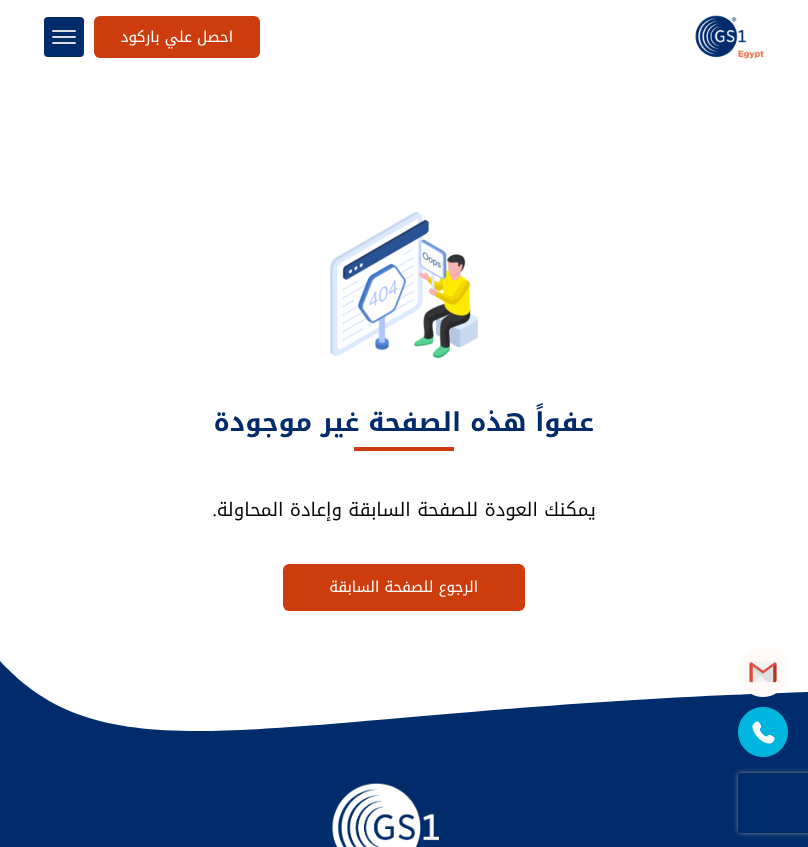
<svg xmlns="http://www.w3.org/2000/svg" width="808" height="847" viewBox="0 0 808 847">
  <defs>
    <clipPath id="clip1"><rect x="0" y="661" width="808" height="71"/></clipPath>
    <clipPath id="clip2"><path d="M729 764H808V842H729ZM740 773H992C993 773 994 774 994 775V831C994 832 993 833 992 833H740C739 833 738 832 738 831V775C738 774 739 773 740 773Z" clip-rule="evenodd"/></clipPath>
  </defs>
  <rect width="100%" height="100%" fill="rgb(255,255,255)"/>
  <image x="695" y="15" width="69" height="44" href="pic1.png"/>
  <rect x="94" y="16" width="166" height="42" rx="6" fill="rgb(205,60,13)"/>
  <text x="233" y="42" font-family="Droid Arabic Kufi" font-size="15" direction="rtl" fill="rgb(255,255,255)">احصل علي باركود</text>
  <rect x="44" y="17" width="40" height="40" rx="4" fill="rgb(0,44,108)"/>
  <rect x="52" y="30" width="24" height="2" rx="1" fill="rgb(221,221,221)"/>
  <rect x="52" y="36" width="24" height="2" rx="1" fill="rgb(221,221,221)"/>
  <rect x="52" y="42" width="24" height="2" rx="1" fill="rgb(221,221,221)"/>
  <image x="330" y="211" width="148" height="148" href="pic2.png"/>
  <text x="594" y="431" font-family="Droid Arabic Kufi" font-size="26" font-weight="bold" direction="rtl" fill="rgb(0,44,108)">عفواً هذه الصفحة غير موجودة</text>
  <rect x="354" y="447" width="100" height="4" fill="rgb(205,60,13)"/>
  <text x="596" y="516" font-family="Droid Arabic Kufi" font-size="18.7" direction="rtl" fill="rgb(9,9,9)">يمكنك العودة للصفحة السابقة وإعادة المحاولة</text>
  <text x="217" y="516" font-family="Liberation Serif" font-size="18.7" direction="rtl" fill="rgb(9,9,9)">.</text>
  <rect x="283" y="564" width="242" height="47" rx="6" fill="rgb(205,60,13)"/>
  <text x="478" y="592" font-family="Droid Arabic Kufi" font-size="15" direction="rtl" fill="rgb(255,255,255)">الرجوع للصفحة السابقة</text>
  <g clip-path="url(#clip1)">
    <path d="M0 661C115 786 274 709 808 692V733H0Z" fill="rgb(0,44,108)"/>
  </g>
  <image x="738" y="647" width="50" height="50" href="pic3.png"/>
  <rect x="0" y="732" width="808" height="115" fill="rgb(0,44,108)"/>
  <image x="738" y="707" width="50" height="50" href="pic4.png"/>
  <image x="332" y="783" width="107" height="64" href="pic5.png"/>
  <g clip-path="url(#clip2)">
    <rect x="738" y="773" width="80" height="60" rx="2" fill="rgb(128,128,128)" filter="blur(2.5px)"/>
  </g>
</svg>
